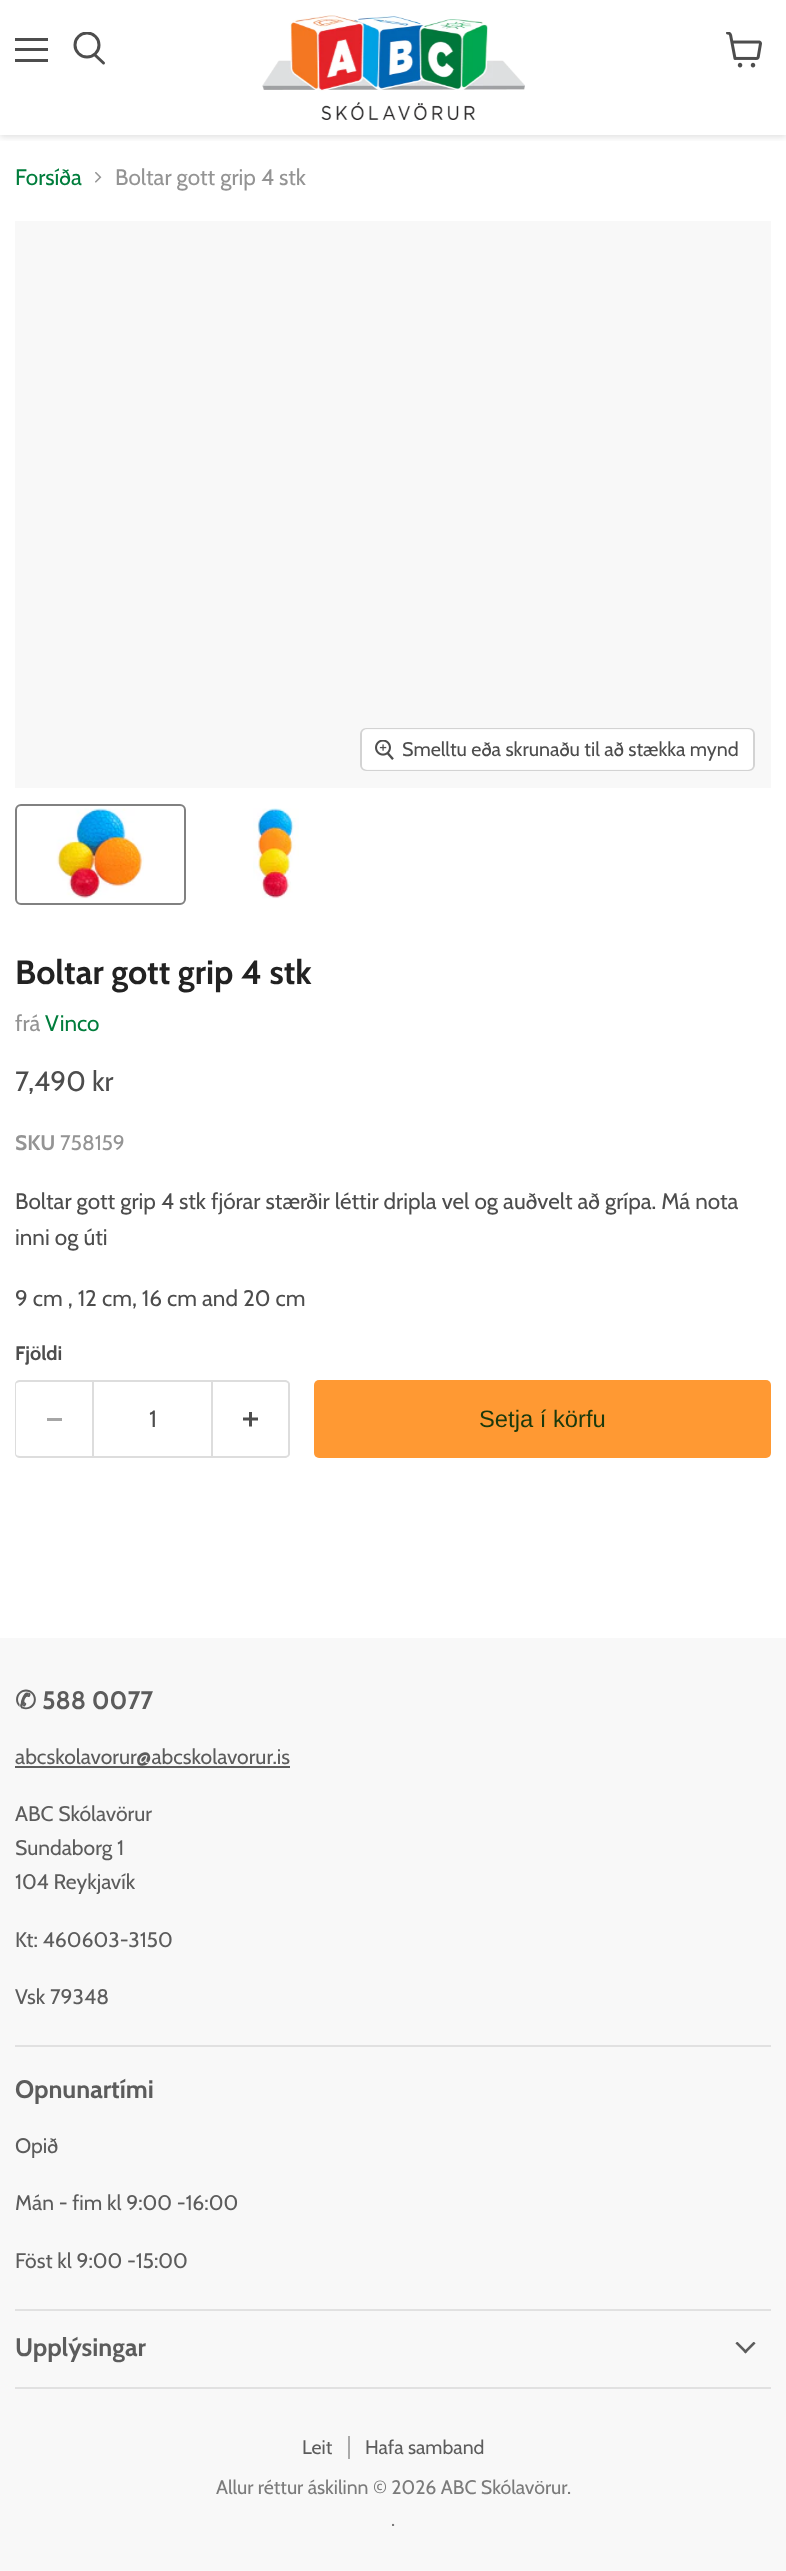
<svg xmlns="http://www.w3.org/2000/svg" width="786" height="2571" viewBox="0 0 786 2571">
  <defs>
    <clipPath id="clip1"><rect x="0" y="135" width="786" height="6"/></clipPath>
    <clipPath id="clip2"><rect x="72" y="32" width="35" height="36"/></clipPath>
  </defs>
  <rect width="100%" height="100%" fill="rgb(255,255,255)"/>
  <g clip-path="url(#clip1)">
    <rect x="0" y="2" width="786" height="135" fill="rgba(128,128,128,0.25)" filter="blur(3px)"/>
  </g>
  <rect x="15" y="38" width="33" height="3" fill="rgb(77,77,77)"/>
  <rect x="15" y="48" width="33" height="3" fill="rgb(77,77,77)"/>
  <rect x="15" y="59" width="33" height="3" fill="rgb(77,77,77)"/>
  <path d="M103.5 63L95 55" fill="none" stroke="rgb(77,77,77)" stroke-width="3" stroke-linecap="round"/>
  <g clip-path="url(#clip2)">
    <circle cx="87" cy="45" r="12" fill="none" stroke="rgb(77,77,77)" stroke-width="3"/>
  </g>
  <image x="262" y="15" width="263" height="105" href="pic1.png"/>
  <image x="726" y="32" width="36" height="36" href="pic2.png"/>
  <text x="15" y="185" font-family="Cabin" font-size="22.5" fill="rgb(0,125,60)">Forsíða</text>
  <image x="95" y="172" width="7" height="11" href="pic3.png"/>
  <text x="115" y="185" font-family="Cabin" font-size="22.5" fill="rgb(148,148,148)">Boltar gott grip 4 stk</text>
  <rect x="15" y="221" width="756" height="567" fill="rgb(248,248,248)"/>
  <rect x="361" y="729" width="393" height="41" rx="5" fill="none" stroke="rgb(211,211,211)" stroke-width="2"/>
  <rect x="362" y="729" width="391" height="41" rx="5" fill="rgba(255,255,255,0.9)"/>
  <image x="375" y="740" width="19" height="20" href="pic4.png"/>
  <text x="402" y="756" font-family="Cabin" font-size="19.7" fill="rgb(77,77,77)">Smelltu eða skrunaðu til að stækka mynd</text>
  <rect x="16" y="805" width="169" height="99" rx="5" fill="none" stroke="rgb(129,129,129)" stroke-width="2"/>
  <image x="56" y="808" width="88" height="91" href="pic5.png"/>
  <image x="253" y="808" width="46" height="91" href="pic6.png"/>
  <text x="15" y="984" font-family="Cabin" font-size="33.75" font-weight="bold" fill="rgb(34,34,34)">Boltar gott grip 4 stk</text>
  <text x="15" y="1031" font-family="Cabin" font-size="22.5" fill="rgb(148,148,148)">frá</text>
  <text x="45" y="1031" font-family="Cabin" font-size="22.5" fill="rgb(0,125,60)">Vinco</text>
  <text x="15" y="1091" font-family="Cabin" font-size="28" fill="rgb(77,77,77)">7,490 kr</text>
  <text x="15" y="1150" font-family="Cabin" font-size="21" font-weight="bold" fill="rgb(148,148,148)">SKU</text>
  <text x="60" y="1150" font-family="Cabin" font-size="21" fill="rgb(148,148,148)">758159</text>
  <g font-family="Cabin" font-size="22.5" fill="rgb(77,77,77)">
    <text>
      <tspan x="15" y="1209">Boltar gott grip 4 stk fjórar stærðir léttir dripla vel og auðvelt að grípa. Má nota</tspan>
      <tspan x="15" y="1245">inni og úti</tspan>
    </text>
    <text x="15" y="1306">9 cm , 12 cm, 16 cm and 20 cm</text>
  </g>
  <text x="15" y="1360" font-family="Cabin" font-size="19.7" font-weight="bold" fill="rgb(77,77,77)">Fjöldi</text>
  <path d="M20 1380H92V1458H20C17 1458 15 1456 15 1454V1384C15 1382 17 1380 20 1380ZM20 1382H92V1456H20C18 1456 16 1455 16 1454V1384C16 1383 18 1382 20 1382Z" fill="rgb(221,221,221)" fill-rule="evenodd"/>
  <rect x="47" y="1418" width="15" height="3" fill="rgb(166,166,166)"/>
  <rect x="93" y="1381" width="119" height="76" fill="none" stroke="rgb(221,221,221)" stroke-width="2"/>
  <text x="149" y="1427" font-family="Cabin" font-size="23.75" fill="rgb(77,77,77)">1</text>
  <path d="M213 1380H285C287 1380 290 1382 290 1384V1454C290 1456 287 1458 285 1458H213ZM213 1382H285C287 1382 288 1383 288 1384V1454C288 1455 287 1456 285 1456H213Z" fill="rgb(221,221,221)" fill-rule="evenodd"/>
  <image x="243" y="1412" width="15" height="15" href="pic7.png"/>
  <rect x="314" y="1380" width="457" height="78" rx="5" fill="rgb(255,153,51)"/>
  <text x="479" y="1427" font-family="Liberation Sans" font-size="23.75" fill="rgb(26,57,12)">Setja í körfu</text>
  <rect x="0" y="1638" width="786" height="933" fill="rgb(248,248,248)"/>
  <rect x="15" y="2045" width="756" height="2" fill="rgb(225,225,225)"/>
  <text x="15" y="1709" font-family="DejaVu Sans" font-size="25.25" font-weight="bold" fill="rgb(92,92,92)">✆</text>
  <text x="42" y="1709" font-family="Cabin" font-size="25.25" font-weight="bold" fill="rgb(92,92,92)">588 0077</text>
  <text x="15" y="1764" font-family="Cabin" font-size="21.1" fill="rgb(92,92,92)">abcskolavorur@abcskolavorur.is</text>
  <rect x="15" y="1766" width="275" height="2" fill="rgb(92,92,92)"/>
  <g font-family="Cabin" font-size="21.1" fill="rgb(92,92,92)">
    <text>
      <tspan x="15" y="1821">ABC Skólavörur</tspan>
      <tspan x="15" y="1855">Sundaborg 1</tspan>
      <tspan x="15" y="1889">104 Reykjavík</tspan>
    </text>
    <text x="15" y="1947">Kt: 460603-3150</text>
    <text x="15" y="2004">Vsk 79348</text>
  </g>
  <rect x="15" y="2309" width="756" height="2" fill="rgb(225,225,225)"/>
  <text x="15" y="2098" font-family="Cabin" font-size="25.25" font-weight="bold" fill="rgb(92,92,92)">Opnunartími</text>
  <g font-family="Cabin" font-size="21.1" fill="rgb(92,92,92)">
    <text x="15" y="2153">Opið</text>
    <text x="15" y="2210">Mán - fim kl 9:00 -16:00</text>
    <text x="15" y="2268">Föst kl 9:00 -15:00</text>
  </g>
  <rect x="15" y="2387" width="756" height="2" fill="rgb(225,225,225)"/>
  <text x="15" y="2356" font-family="Cabin" font-size="25.25" font-weight="bold" fill="rgb(92,92,92)">Upplýsingar</text>
  <image x="735" y="2342" width="21" height="12" href="pic8.png"/>
  <rect x="348" y="2436" width="2" height="23" fill="rgb(170,170,170)"/>
  <g font-family="Cabin" font-size="19.5" fill="rgb(92,92,92)">
    <text x="302" y="2454">Leit</text>
    <text x="365" y="2454">Hafa samband</text>
  </g>
  <g font-family="Cabin" font-size="19.5" fill="rgb(123,123,123)">
    <text x="216" y="2494">Allur réttur áskilinn © 2026 ABC Skólavörur.</text>
    <text x="391" y="2526">.</text>
  </g>
</svg>
